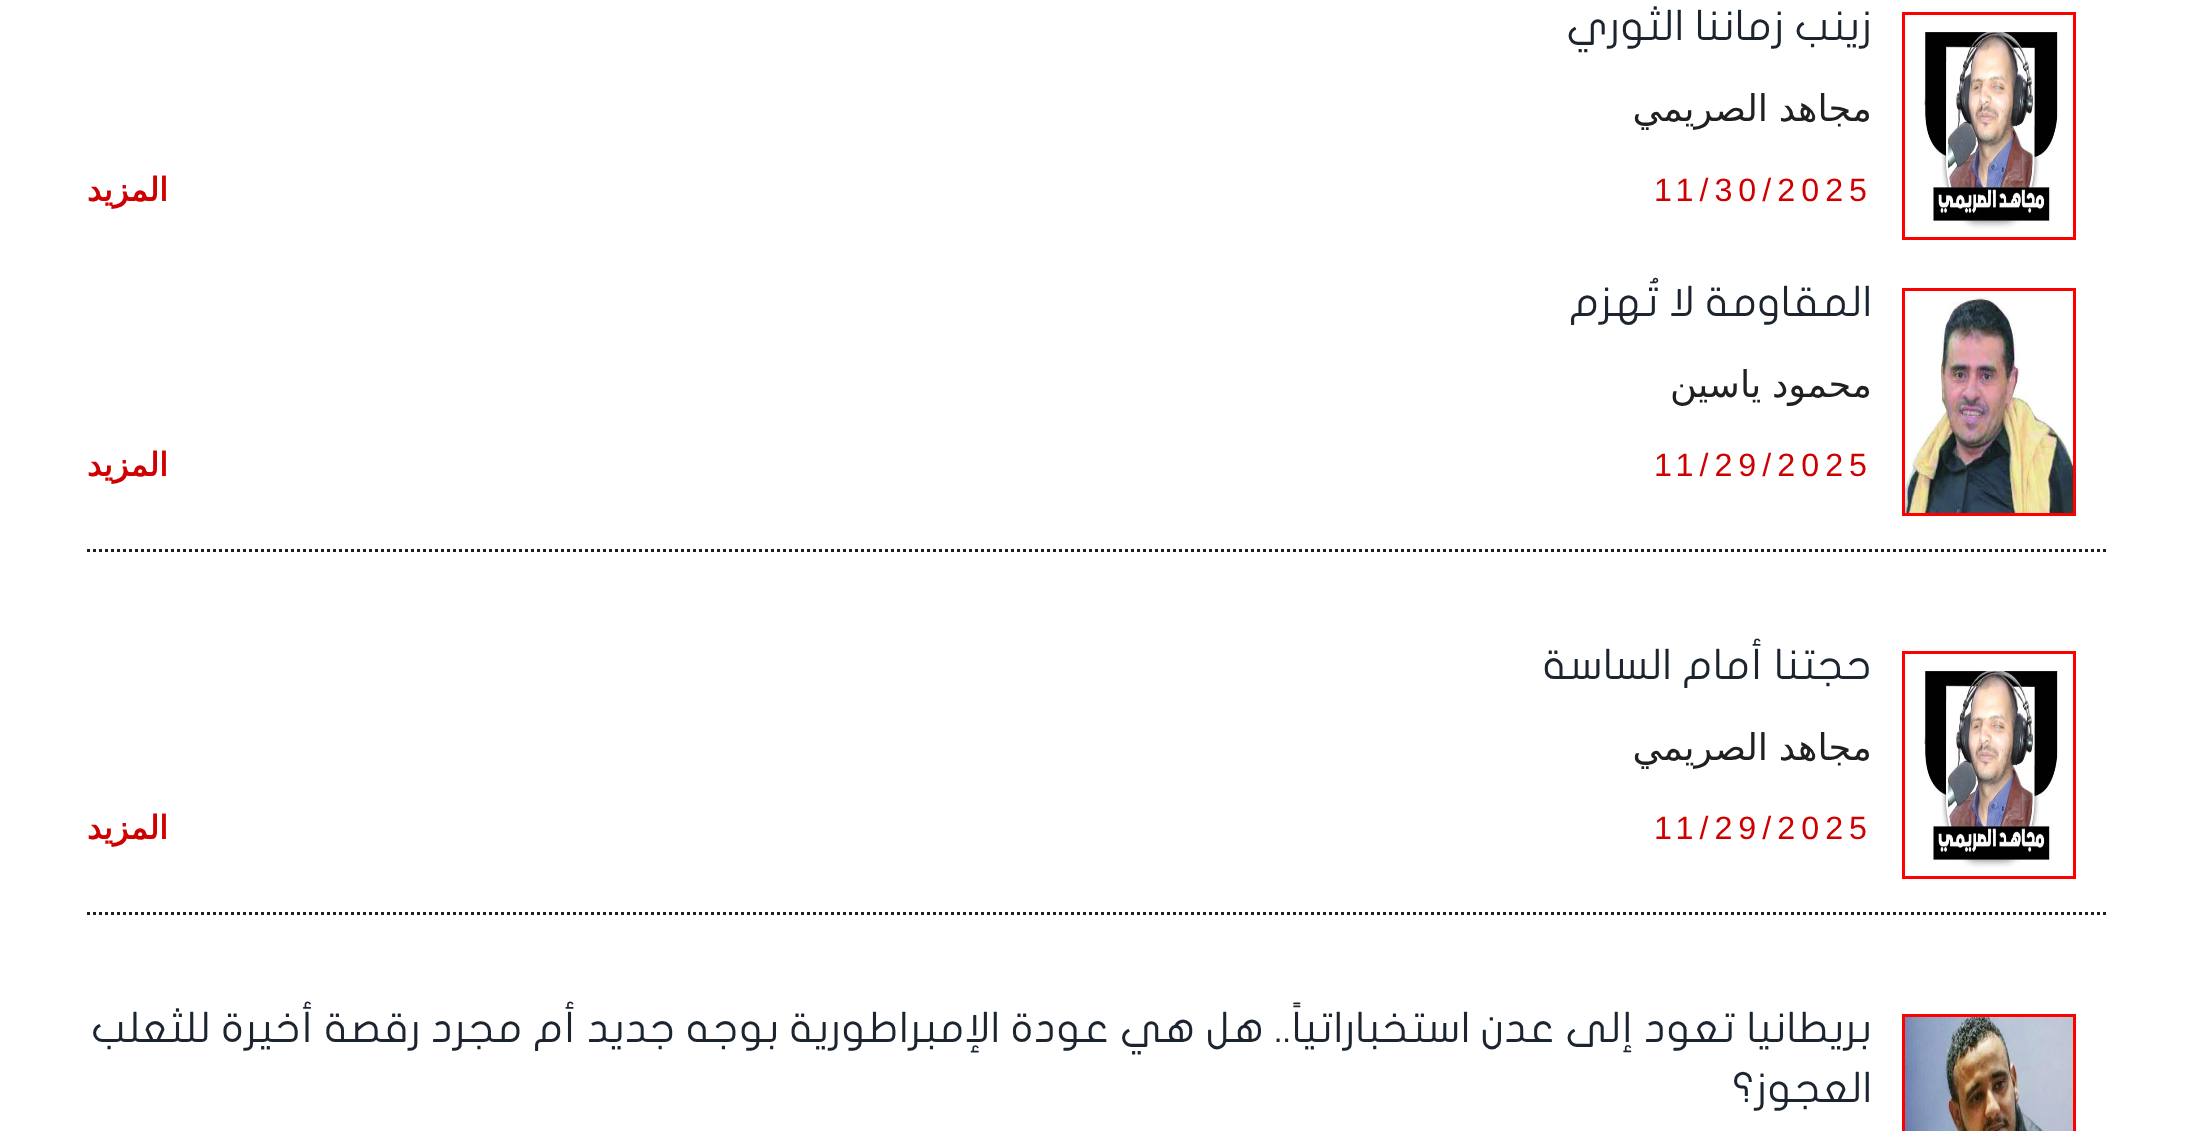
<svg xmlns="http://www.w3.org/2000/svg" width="2193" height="1131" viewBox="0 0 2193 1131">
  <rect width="100%" height="100%" fill="rgb(255,255,255)"/>
  <rect x="1903.5" y="13.5" width="171" height="225" fill="none" stroke="rgb(255,0,0)" stroke-width="3"/>
  <image x="1923" y="31" width="136" height="198" href="pic1.png"/>
  <text x="1872" y="40" font-family="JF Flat" font-size="42" direction="rtl" fill="rgb(27,36,47)">زينب زماننا الثوري</text>
  <text x="1872" y="121" word-spacing="-1" font-family="DejaVu Sans" font-size="36.75" direction="rtl" fill="rgb(32,32,33)">مجاهد الصريمي</text>
  <text x="1654" y="201" font-family="Liberation Sans" font-size="32.25" letter-spacing="6" fill="rgb(207,0,0)">11/30/2025</text>
  <text x="168" y="201" font-family="DejaVu Sans" font-size="32.25" font-weight="bold" direction="rtl" fill="rgb(207,0,0)">المزيد</text>
  <path d="M87 550.5H2106" fill="none" stroke="rgb(32,32,33)" stroke-width="3" stroke-dasharray="3 3"/>
  <rect x="1903.5" y="289.5" width="171" height="225" fill="none" stroke="rgb(255,0,0)" stroke-width="3"/>
  <image x="1905" y="296" width="168" height="217" href="pic2.png"/>
  <text x="1872" y="316" font-family="JF Flat" font-size="42" direction="rtl" fill="rgb(27,36,47)">المقاومة لا تُهزم</text>
  <text x="1872" y="397" word-spacing="-1" font-family="DejaVu Sans" font-size="36.75" direction="rtl" fill="rgb(32,32,33)">محمود ياسين</text>
  <text x="1654" y="476" font-family="Liberation Sans" font-size="32.25" letter-spacing="6" fill="rgb(207,0,0)">11/29/2025</text>
  <text x="168" y="476" font-family="DejaVu Sans" font-size="32.25" font-weight="bold" direction="rtl" fill="rgb(207,0,0)">المزيد</text>
  <path d="M87 913.5H2106" fill="none" stroke="rgb(32,32,33)" stroke-width="3" stroke-dasharray="3 3"/>
  <rect x="1903.5" y="652.5" width="171" height="225" fill="none" stroke="rgb(255,0,0)" stroke-width="3"/>
  <image x="1923" y="670" width="136" height="198" href="pic1.png"/>
  <text x="1872" y="679" font-family="JF Flat" font-size="42" direction="rtl" fill="rgb(27,36,47)">حجتنا أمام الساسة</text>
  <text x="1872" y="760" word-spacing="-1" font-family="DejaVu Sans" font-size="36.75" direction="rtl" fill="rgb(32,32,33)">مجاهد الصريمي</text>
  <text x="1654" y="839" font-family="Liberation Sans" font-size="32.25" letter-spacing="6" fill="rgb(207,0,0)">11/29/2025</text>
  <text x="168" y="839" font-family="DejaVu Sans" font-size="32.25" font-weight="bold" direction="rtl" fill="rgb(207,0,0)">المزيد</text>
  <rect x="1903.5" y="1015.5" width="171" height="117" fill="none" stroke="rgb(255,0,0)" stroke-width="3"/>
  <image x="1905" y="1017" width="168" height="114" href="pic3.png"/>
  <g font-family="JF Flat" font-size="42" direction="rtl" fill="rgb(27,36,47)">
    <text>
      <tspan x="1872" y="1042">بريطانيا تعود إلى عدن استخباراتياً.. هل هي عودة الإمبراطورية بوجه جديد أم مجرد رقصة أخيرة للثعلب</tspan>
      <tspan x="1872" y="1102">العجوز؟</tspan>
    </text>
  </g>
</svg>
